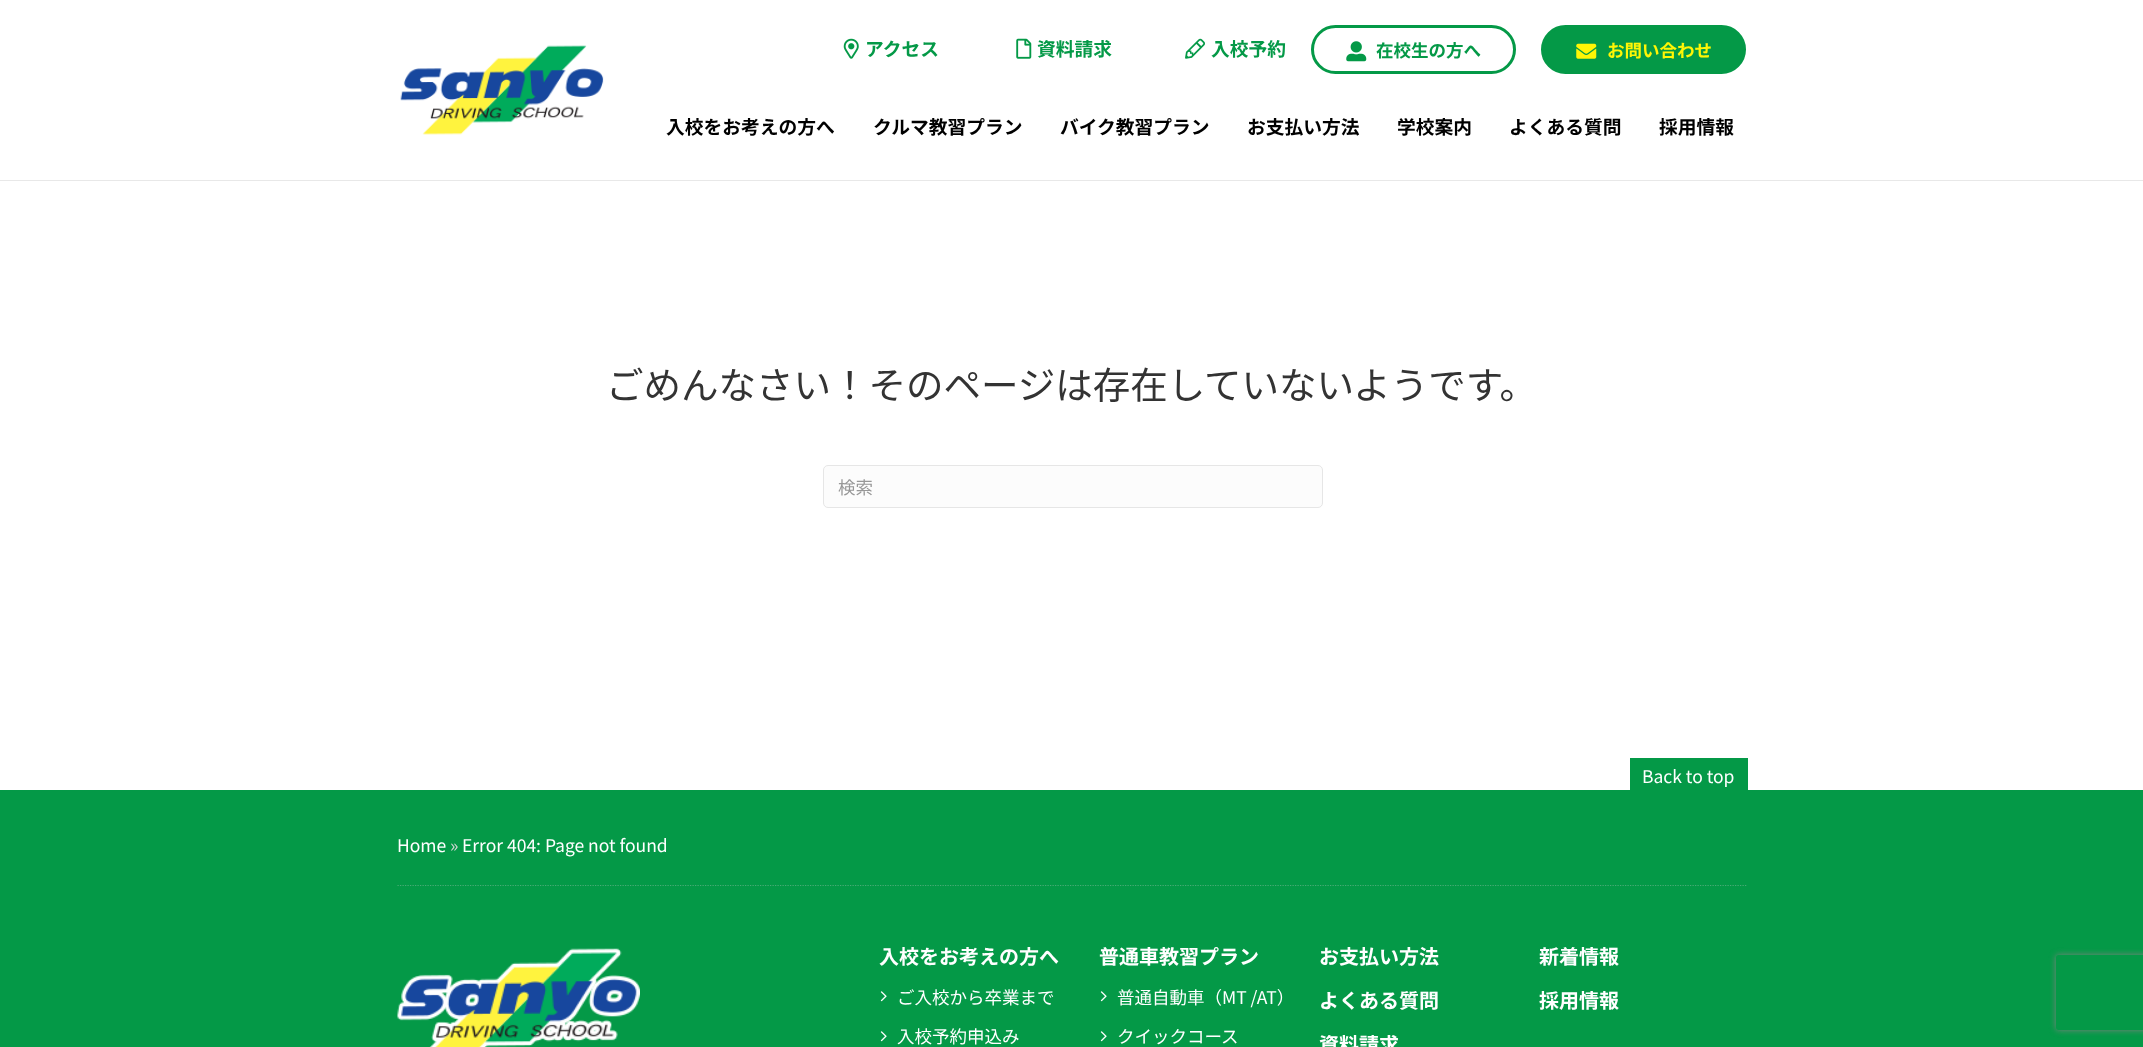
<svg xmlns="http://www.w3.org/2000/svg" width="2143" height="1047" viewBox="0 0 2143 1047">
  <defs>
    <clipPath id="clip1"><path d="M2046 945H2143V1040H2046ZM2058.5 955H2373.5C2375 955 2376 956 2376 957.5V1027.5C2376 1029 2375 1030 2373.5 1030H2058.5C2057 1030 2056 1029 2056 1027.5V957.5C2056 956 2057 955 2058.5 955Z" clip-rule="evenodd"/></clipPath>
  </defs>
  <rect width="100%" height="100%" fill="rgb(255,255,255)"/>
  <rect x="0" y="180" width="2143" height="1" fill="rgb(232,232,232)"/>
  <image x="400" y="45" width="204" height="90" href="pic1.png"/>
  <image x="843" y="38" width="16" height="21" href="pic2.png"/>
  <text x="865" y="56" font-family="Noto Sans JP" font-size="18.75" font-weight="bold" fill="rgb(4,153,71)">アクセス</text>
  <image x="1016" y="38" width="16" height="21" href="pic3.png"/>
  <text x="1037" y="56" font-family="Noto Sans JP" font-size="18.75" font-weight="bold" fill="rgb(4,153,71)">資料請求</text>
  <image x="1185" y="38" width="20" height="21" href="pic4.png"/>
  <text x="1211" y="56" font-family="Noto Sans JP" font-size="18.75" font-weight="bold" fill="rgb(4,153,71)">入校予約</text>
  <rect x="1312.5" y="26.5" width="202" height="46" rx="23" fill="none" stroke="rgb(4,153,71)" stroke-width="3"/>
  <image x="1346" y="41" width="21" height="21" href="pic5.png"/>
  <text x="1376" y="57" font-family="Noto Sans JP" font-size="17.5" font-weight="bold" fill="rgb(4,153,71)">在校生の方へ</text>
  <rect x="1542.5" y="26.5" width="202" height="46" rx="23" fill="rgb(4,153,71)" stroke="rgb(4,153,71)" stroke-width="3"/>
  <image x="1576" y="43" width="21" height="16" href="pic6.png"/>
  <text x="1607" y="57" font-family="Noto Sans JP" font-size="17.5" font-weight="bold" fill="rgb(255,246,5)">お問い合わせ</text>
  <g font-family="Noto Sans JP" font-size="18.75" font-weight="bold" fill="rgb(0,0,0)">
    <text x="666" y="134">入校をお考えの方へ</text>
    <text x="873" y="134">クルマ教習プラン</text>
    <text x="1060" y="134">バイク教習プラン</text>
    <text x="1247" y="134">お支払い方法</text>
    <text x="1397" y="134">学校案内</text>
    <text x="1509" y="134">よくある質問</text>
    <text x="1659" y="134">採用情報</text>
  </g>
  <text x="606" y="399" font-family="Noto Sans JP" font-size="37.5" fill="rgb(51,51,51)">ごめんなさい！そのページは存在していないようです。</text>
  <rect x="823.5" y="465.5" width="499" height="42" rx="4.5" fill="rgb(252,252,252)" stroke="rgb(230,230,230)"/>
  <text x="838" y="494" font-family="Noto Sans JP" font-size="17.5" fill="rgb(151,151,151)">検索</text>
  <rect x="1630" y="758" width="118" height="32" fill="rgb(4,153,71)"/>
  <text x="1642" y="783" font-family="Noto Sans JP" font-size="17.5" fill="rgb(255,255,255)">Back to top</text>
  <rect x="0" y="790" width="2143" height="257" fill="rgb(4,153,71)"/>
  <text x="397" y="852" font-family="Noto Sans JP" font-size="17.5" fill="rgb(255,255,255)">Home</text>
  <text x="450" y="852" font-family="Noto Sans JP" font-size="17.5" fill="rgb(214,214,214)">»</text>
  <text x="462" y="852" font-family="Noto Sans JP" font-size="17.5" fill="rgb(255,255,255)">Error 404: Page not found</text>
  <path d="M397.5 885.5H1747.5" fill="none" stroke="rgb(74,171,118)" stroke-width="1.2" stroke-dasharray="1.25 1.25"/>
  <image x="397" y="948" width="243" height="99" href="pic7.png"/>
  <text x="879" y="964" font-family="Noto Sans JP" font-size="20" font-weight="bold" fill="rgb(255,255,255)">入校をお考えの方へ</text>
  <image x="880" y="991" width="7" height="11" href="pic8.png"/>
  <text x="897" y="1004" font-family="Noto Sans JP" font-size="17.5" fill="rgb(255,255,255)">ご入校から卒業まで</text>
  <image x="880" y="1031" width="7" height="11" href="pic8.png"/>
  <text x="897" y="1043" font-family="Noto Sans JP" font-size="17.5" fill="rgb(255,255,255)">入校予約申込み</text>
  <text x="1099" y="964" font-family="Noto Sans JP" font-size="20" font-weight="bold" fill="rgb(255,255,255)">普通車教習プラン</text>
  <image x="1100" y="991" width="7" height="11" href="pic8.png"/>
  <text x="1117" y="1004" font-family="Noto Sans JP" font-size="17.5" fill="rgb(255,255,255)">普通自動車（MT /AT）</text>
  <image x="1100" y="1031" width="7" height="11" href="pic8.png"/>
  <text x="1117" y="1043" font-family="Noto Sans JP" font-size="17.5" fill="rgb(255,255,255)">クイックコース</text>
  <g font-family="Noto Sans JP" font-size="20" font-weight="bold" fill="rgb(255,255,255)">
    <text x="1319" y="964">お支払い方法</text>
    <text x="1319" y="1008">よくある質問</text>
    <text x="1319" y="1052">資料請求</text>
    <text x="1539" y="964">新着情報</text>
    <text x="1539" y="1008">採用情報</text>
  </g>
  <g clip-path="url(#clip1)">
    <rect x="2056" y="955" width="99" height="75" rx="2.5" fill="rgb(128,128,128)" filter="blur(3px)"/>
  </g>
</svg>
